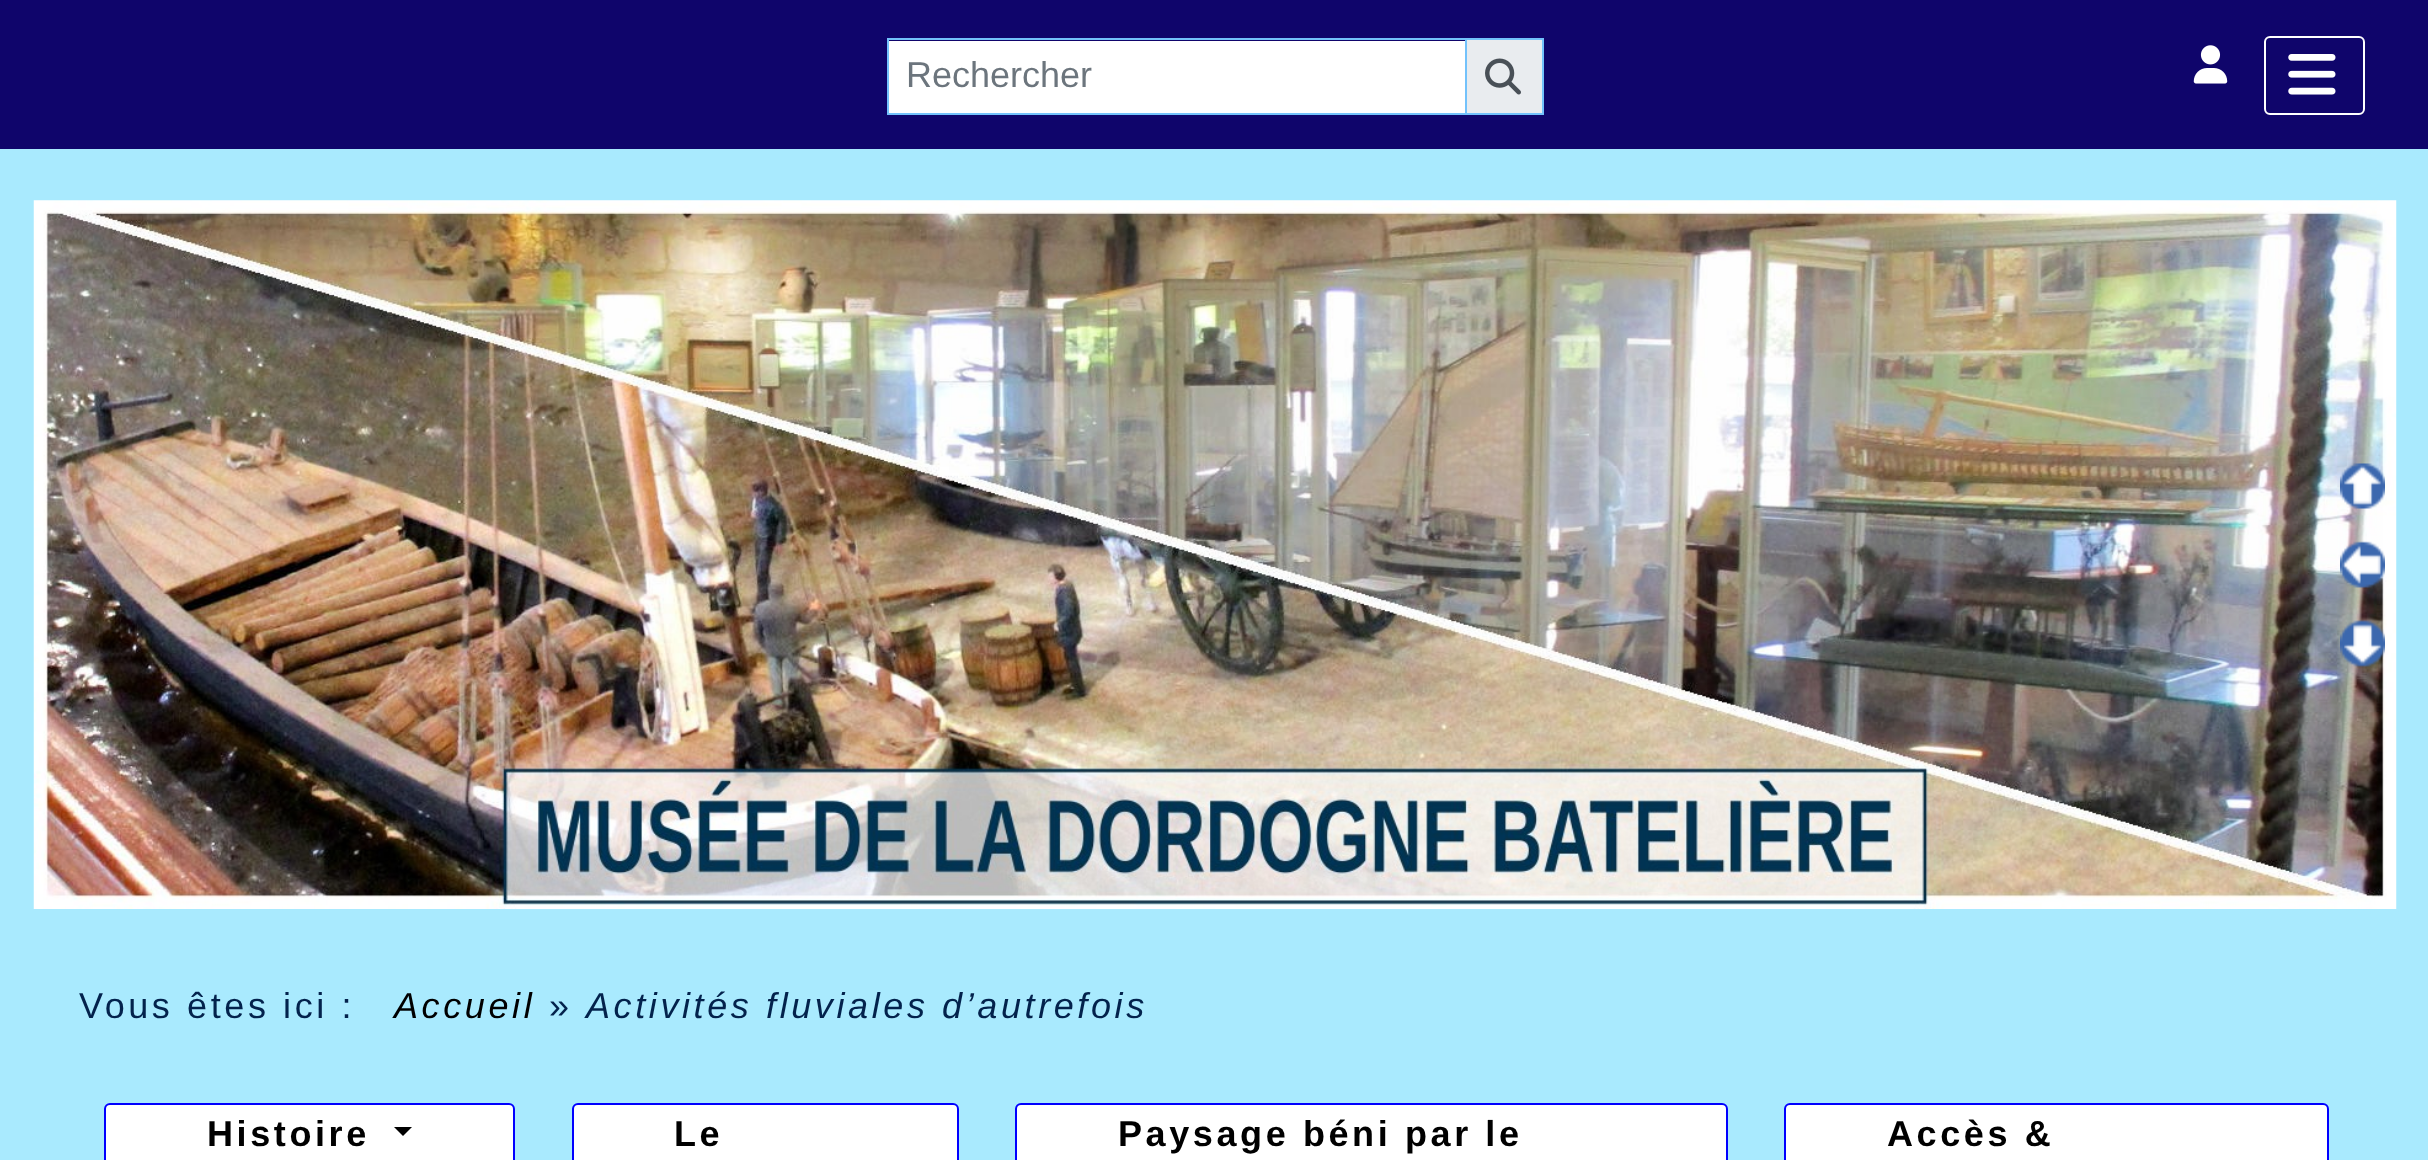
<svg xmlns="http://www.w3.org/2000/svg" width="2428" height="1160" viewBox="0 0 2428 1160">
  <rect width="100%" height="100%" fill="rgb(169,234,254)"/>
  <rect x="0" y="0" width="2428" height="149" fill="rgb(15,5,107)"/>
  <rect x="889" y="41" width="576" height="72" fill="rgb(255,255,255)"/>
  <rect x="1466" y="39" width="77" height="75" fill="rgb(233,236,239)" stroke="rgb(115,194,251)" stroke-width="2"/>
  <rect x="888" y="39" width="578" height="75" fill="none" stroke="rgb(115,194,251)" stroke-width="2"/>
  <text x="906" y="87" font-family="Liberation Sans" font-size="36" fill="rgb(108,117,125)">Rechercher</text>
  <image x="1485" y="58" width="36" height="37" href="pic1.png"/>
  <image x="2193" y="45" width="35" height="39" href="pic2.png"/>
  <rect x="2265" y="37" width="99" height="77" rx="5" fill="none" stroke="rgb(255,255,255)" stroke-width="2"/>
  <image x="2288" y="54" width="48" height="41" href="pic3.png"/>
  <image x="33" y="200" width="2364" height="709" href="pic4.png"/>
  <text x="79" y="1018" font-family="Liberation Sans" font-size="36" letter-spacing="3.6" fill="rgb(3,34,76)">Vous êtes ici :</text>
  <text x="394" y="1018" font-family="Liberation Sans" font-size="36" font-style="italic" letter-spacing="3.6" fill="rgb(0,0,0)">Accueil</text>
  <text x="549" y="1018" font-family="Liberation Sans" font-size="36" letter-spacing="3.6" fill="rgb(3,34,76)">»</text>
  <text x="586" y="1018" font-family="Liberation Sans" font-size="36" font-style="italic" letter-spacing="3.6" fill="rgb(3,34,76)">Activités fluviales d’autrefois</text>
  <rect x="105" y="1104" width="409" height="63" rx="5" fill="rgb(255,255,255)" stroke="rgb(0,0,255)" stroke-width="2"/>
  <text x="207" y="1146" font-family="Liberation Sans" font-size="36" font-weight="bold" letter-spacing="3.6" fill="rgb(0,0,0)">Histoire</text>
  <path d="M394 1127H412L403 1136Z" fill="rgb(0,0,0)"/>
  <rect x="573" y="1104" width="385" height="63" rx="5" fill="rgb(255,255,255)" stroke="rgb(0,0,255)" stroke-width="2"/>
  <text x="674" y="1146" font-family="Liberation Sans" font-size="36" font-weight="bold" letter-spacing="3.6" fill="rgb(0,0,0)">Le</text>
  <rect x="1016" y="1104" width="711" height="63" rx="5" fill="rgb(255,255,255)" stroke="rgb(0,0,255)" stroke-width="2"/>
  <text x="1118" y="1146" font-family="Liberation Sans" font-size="36" font-weight="bold" letter-spacing="3.6" fill="rgb(0,0,0)">Paysage béni par le</text>
  <rect x="1785" y="1104" width="543" height="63" rx="5" fill="rgb(255,255,255)" stroke="rgb(0,0,255)" stroke-width="2"/>
  <text x="1887" y="1146" font-family="Liberation Sans" font-size="36" font-weight="bold" letter-spacing="3.6" fill="rgb(0,0,0)">Accès &amp;</text>
  <image x="2340" y="463" width="45" height="46" href="pic5.png"/>
  <image x="2340" y="541" width="45" height="47" href="pic6.png"/>
  <image x="2340" y="620" width="45" height="47" href="pic7.png"/>
</svg>
